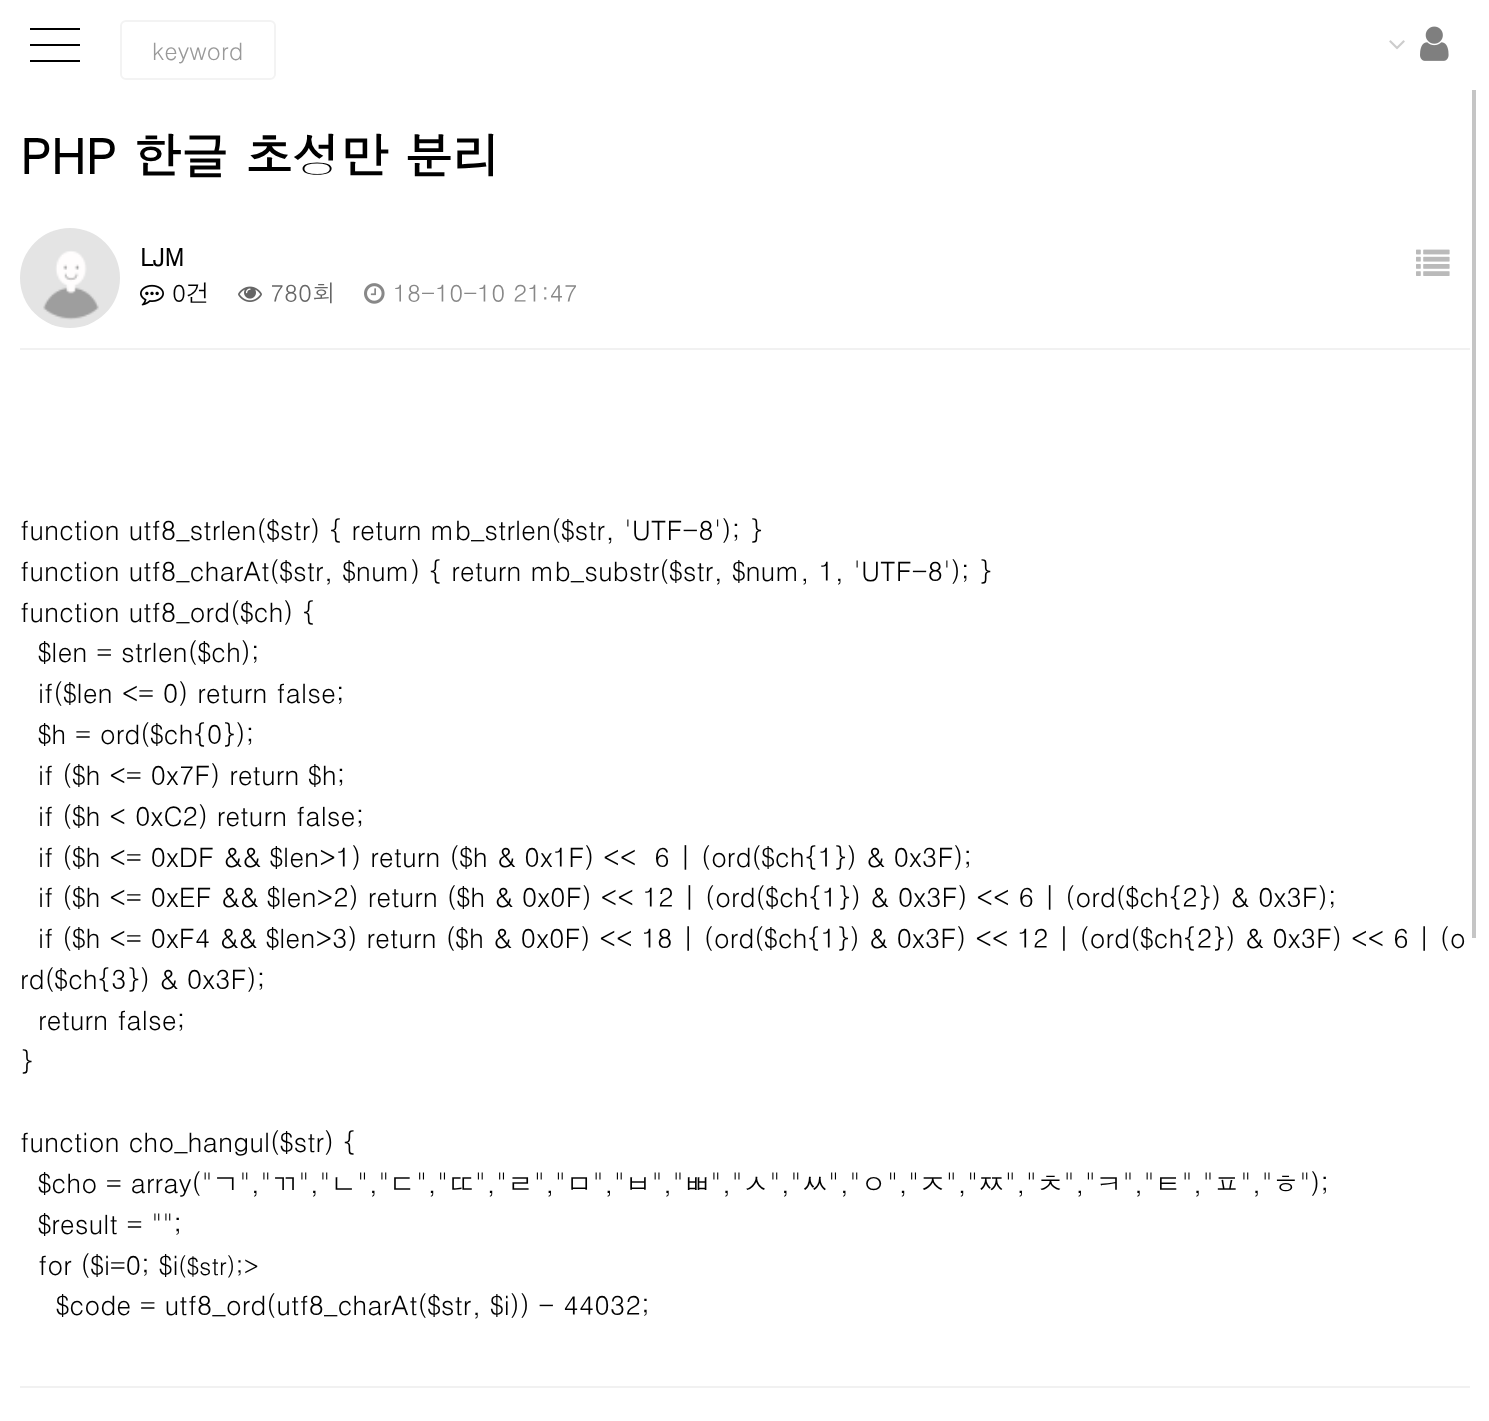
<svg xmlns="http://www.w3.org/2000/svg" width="1489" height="1421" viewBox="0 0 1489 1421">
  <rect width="100%" height="100%" fill="rgb(255,255,255)"/>
  <rect x="30" y="44" width="50" height="2" fill="rgb(0,0,0)"/>
  <rect x="30" y="28" width="50" height="2" fill="rgb(0,0,0)"/>
  <rect x="30" y="60" width="50" height="2" fill="rgb(0,0,0)"/>
  <rect x="121" y="21" width="154" height="58" rx="5" fill="none" stroke="rgb(243,243,243)" stroke-width="2"/>
  <text x="152" y="60" font-family="Dotum" font-size="24" fill="rgb(153,153,153)">keyword</text>
  <image x="1389" y="40" width="16" height="10" href="pic1.png"/>
  <image x="1420" y="26" width="29" height="35" href="pic2.png"/>
  <text x="20" y="174" font-family="Dotum" font-size="48" font-weight="bold" fill="rgb(0,0,0)">PHP 한글 초성만 분리</text>
  <rect x="20" y="348" width="1450" height="2" fill="rgb(241,241,241)"/>
  <image x="20" y="228" width="100" height="100" href="pic3.png"/>
  <text x="140" y="266" font-family="Dotum" font-size="24" font-weight="bold" fill="rgb(0,0,0)">LJM</text>
  <image x="140" y="284" width="24" height="22" href="pic4.png"/>
  <text x="172" y="302" font-family="Dotum" font-size="24" fill="rgb(0,0,0)">0건</text>
  <image x="238" y="286" width="24" height="16" href="pic5.png"/>
  <text x="270" y="302" font-family="Dotum" font-size="24" fill="rgb(102,102,102)">780회</text>
  <image x="364" y="283" width="21" height="21" href="pic6.png"/>
  <text x="393" y="302" font-family="Dotum" font-size="24" fill="rgb(136,136,136)">18-10-10 21:47</text>
  <image x="1416" y="249" width="34" height="27" href="pic7.png"/>
  <g font-family="Dotum" font-size="26.67" fill="rgb(0,0,0)">
    <text>
      <tspan x="20" y="540">function utf8_strlen($str) { return mb_strlen($str, 'UTF-8'); }</tspan>
      <tspan x="20" y="581">function utf8_charAt($str, $num) { return mb_substr($str, $num, 1, 'UTF-8'); }</tspan>
      <tspan x="20" y="622">function utf8_ord($ch) {</tspan>
    </text>
    <text xml:space="preserve"><tspan x="38" y="662">$len = strlen($ch);</tspan><tspan x="38" y="703">if($len &lt;= 0) return false;</tspan><tspan x="38" y="744">$h = ord($ch{0});</tspan><tspan x="38" y="785">if ($h &lt;= 0x7F) return $h;</tspan><tspan x="38" y="826">if ($h &lt; 0xC2) return false;</tspan><tspan x="38" y="867">if ($h &lt;= 0xDF &amp;&amp; $len&gt;1) return ($h &amp; 0x1F) &lt;&lt;  6 | (ord($ch{1}) &amp; 0x3F);</tspan><tspan x="38" y="907">if ($h &lt;= 0xEF &amp;&amp; $len&gt;2) return ($h &amp; 0x0F) &lt;&lt; 12 | (ord($ch{1}) &amp; 0x3F) &lt;&lt; 6 | (ord($ch{2}) &amp; 0x3F);</tspan><tspan x="38" y="948">if ($h &lt;= 0xF4 &amp;&amp; $len&gt;3) return ($h &amp; 0x0F) &lt;&lt; 18 | (ord($ch{1}) &amp; 0x3F) &lt;&lt; 12 | (ord($ch{2}) &amp; 0x3F) &lt;&lt; 6 | (o</tspan></text>
    <text x="20" y="989">rd($ch{3}) &amp; 0x3F);</text>
    <text x="38" y="1030">return false;</text>
    <text x="20" y="1071">}</text>
    <text x="20" y="1152">function cho_hangul($str) {</text>
    <text>
      <tspan x="38" y="1193">$cho = array("ㄱ","ㄲ","ㄴ","ㄷ","ㄸ","ㄹ","ㅁ","ㅂ","ㅃ","ㅅ","ㅆ","ㅇ","ㅈ","ㅉ","ㅊ","ㅋ","ㅌ","ㅍ","ㅎ");</tspan>
      <tspan x="38" y="1234">$result = "";</tspan>
      <tspan x="38" y="1275">for ($i=0; $i</tspan>
    </text>
  </g>
  <text x="178" y="1275" font-family="Dotum" font-size="24" fill="rgb(0,0,0)">($str);&gt;</text>
  <text x="56" y="1315" font-family="Dotum" font-size="26.67" fill="rgb(0,0,0)">$code = utf8_ord(utf8_charAt($str, $i)) - 44032;</text>
  <rect x="20" y="1386" width="1450" height="2" fill="rgb(241,241,241)"/>
  <rect x="1472" y="90" width="4" height="848" fill="rgb(197,197,197)"/>
</svg>
